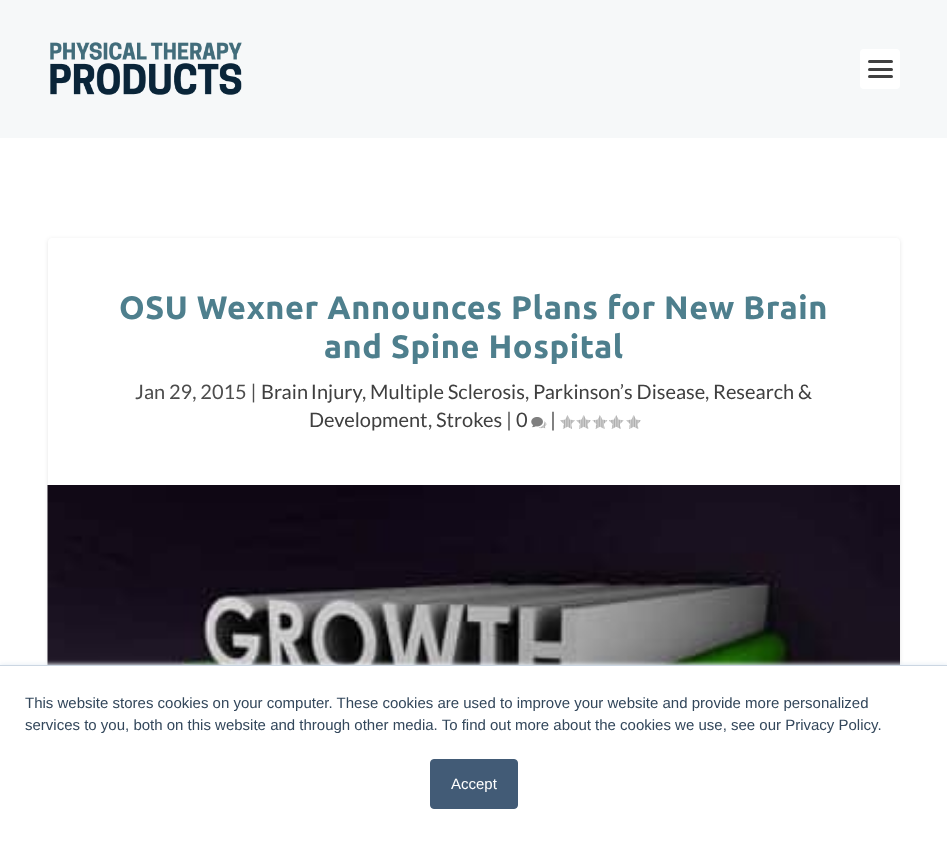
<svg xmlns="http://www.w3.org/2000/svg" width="947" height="841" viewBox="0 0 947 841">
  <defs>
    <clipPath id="clip1"><path d="M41 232H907V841H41ZM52 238H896C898 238 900 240 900 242V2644C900 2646 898 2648 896 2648H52C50 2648 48 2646 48 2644V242C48 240 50 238 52 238Z" clip-rule="evenodd"/></clipPath>
  </defs>
  <rect width="100%" height="100%" fill="rgb(255,255,255)"/>
  <rect x="0" y="0" width="947" height="138" fill="rgb(246,248,249)"/>
  <image x="50" y="42" width="192" height="53" href="pic1.png"/>
  <rect x="860" y="49" width="40" height="40" rx="4" fill="rgb(255,255,255)"/>
  <rect x="868" y="60" width="25" height="3" rx="1.5" fill="rgb(64,64,64)"/>
  <rect x="868" y="68" width="25" height="3" rx="1.5" fill="rgb(64,64,64)"/>
  <rect x="868" y="75" width="25" height="3" rx="1.5" fill="rgb(64,64,64)"/>
  <g clip-path="url(#clip1)">
    <rect x="48" y="239" width="852" height="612" rx="4" fill="rgba(0,0,0,0.1)" filter="blur(2px)"/>
  </g>
  <g font-family="Ubuntu" font-size="32.5" font-weight="bold" letter-spacing="0.6" fill="rgb(78,127,141)">
    <text x="119" y="319">OSU Wexner Announces Plans for New Brain</text>
    <text x="324" y="358">and Spine Hospital</text>
  </g>
  <text x="135" y="399" font-family="Lato" font-size="20" fill="rgb(77,77,77)">Jan 29, 2015 |</text>
  <text x="261" y="399" word-spacing="-1" font-family="Lato" font-size="20" fill="rgb(64,64,64)">Brain Injury</text>
  <text x="362" y="399" font-family="Lato" font-size="20" fill="rgb(77,77,77)">,</text>
  <text x="370" y="399" font-family="Lato" font-size="20" fill="rgb(64,64,64)">Multiple Sclerosis</text>
  <text x="525" y="399" font-family="Lato" font-size="20" fill="rgb(77,77,77)">,</text>
  <text x="533" y="399" font-family="Lato" font-size="20" fill="rgb(64,64,64)">Parkinson’s Disease</text>
  <text x="705" y="399" font-family="Lato" font-size="20" fill="rgb(77,77,77)">,</text>
  <g font-family="Lato" font-size="20" fill="rgb(64,64,64)">
    <text x="713" y="399">Research &amp;</text>
    <text x="309" y="427">Development</text>
  </g>
  <text x="428" y="427" font-family="Lato" font-size="20" fill="rgb(77,77,77)">,</text>
  <text x="436" y="427" font-family="Lato" font-size="20" fill="rgb(64,64,64)">Strokes</text>
  <text x="506" y="427" font-family="Lato" font-size="20" fill="rgb(77,77,77)">|</text>
  <text x="516" y="427" font-family="Lato" font-size="20" fill="rgb(64,64,64)">0</text>
  <image x="531" y="417" width="16" height="12" href="pic2.png"/>
  <text x="550" y="427" font-family="Lato" font-size="20" fill="rgb(77,77,77)">|</text>
  <image x="560" y="415" width="15" height="14" href="pic3.png"/>
  <image x="576" y="415" width="15" height="14" href="pic4.png"/>
  <image x="592" y="415" width="16" height="14" href="pic5.png"/>
  <image x="609" y="415" width="15" height="14" href="pic6.png"/>
  <image x="626" y="415" width="15" height="14" href="pic4.png"/>
  <image x="47" y="485" width="853" height="180" href="pic7.png"/>
  <rect x="0" y="664" width="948" height="176" fill="rgb(234,240,246)" filter="blur(2px)"/>
  <rect x="0" y="666" width="947" height="175" fill="rgb(255,255,255)"/>
  <rect x="0" y="665" width="947" height="1" fill="rgb(203,214,226)"/>
  <g font-family="Liberation Sans" font-size="15" fill="rgb(51,71,91)">
    <text>
      <tspan x="25" y="708">This website stores cookies on your computer. These cookies are used to improve your website and provide more personalized</tspan>
      <tspan x="25" y="730">services to you, both on this website and through other media. To find out more about the cookies we use, see our Privacy Policy.</tspan>
    </text>
  </g>
  <rect x="430.5" y="759.5" width="87" height="49" rx="3.5" fill="rgb(66,91,118)" stroke="rgb(66,91,118)"/>
  <text x="451" y="789" font-family="Liberation Sans" font-size="15" fill="rgb(255,255,255)">Accept</text>
</svg>
